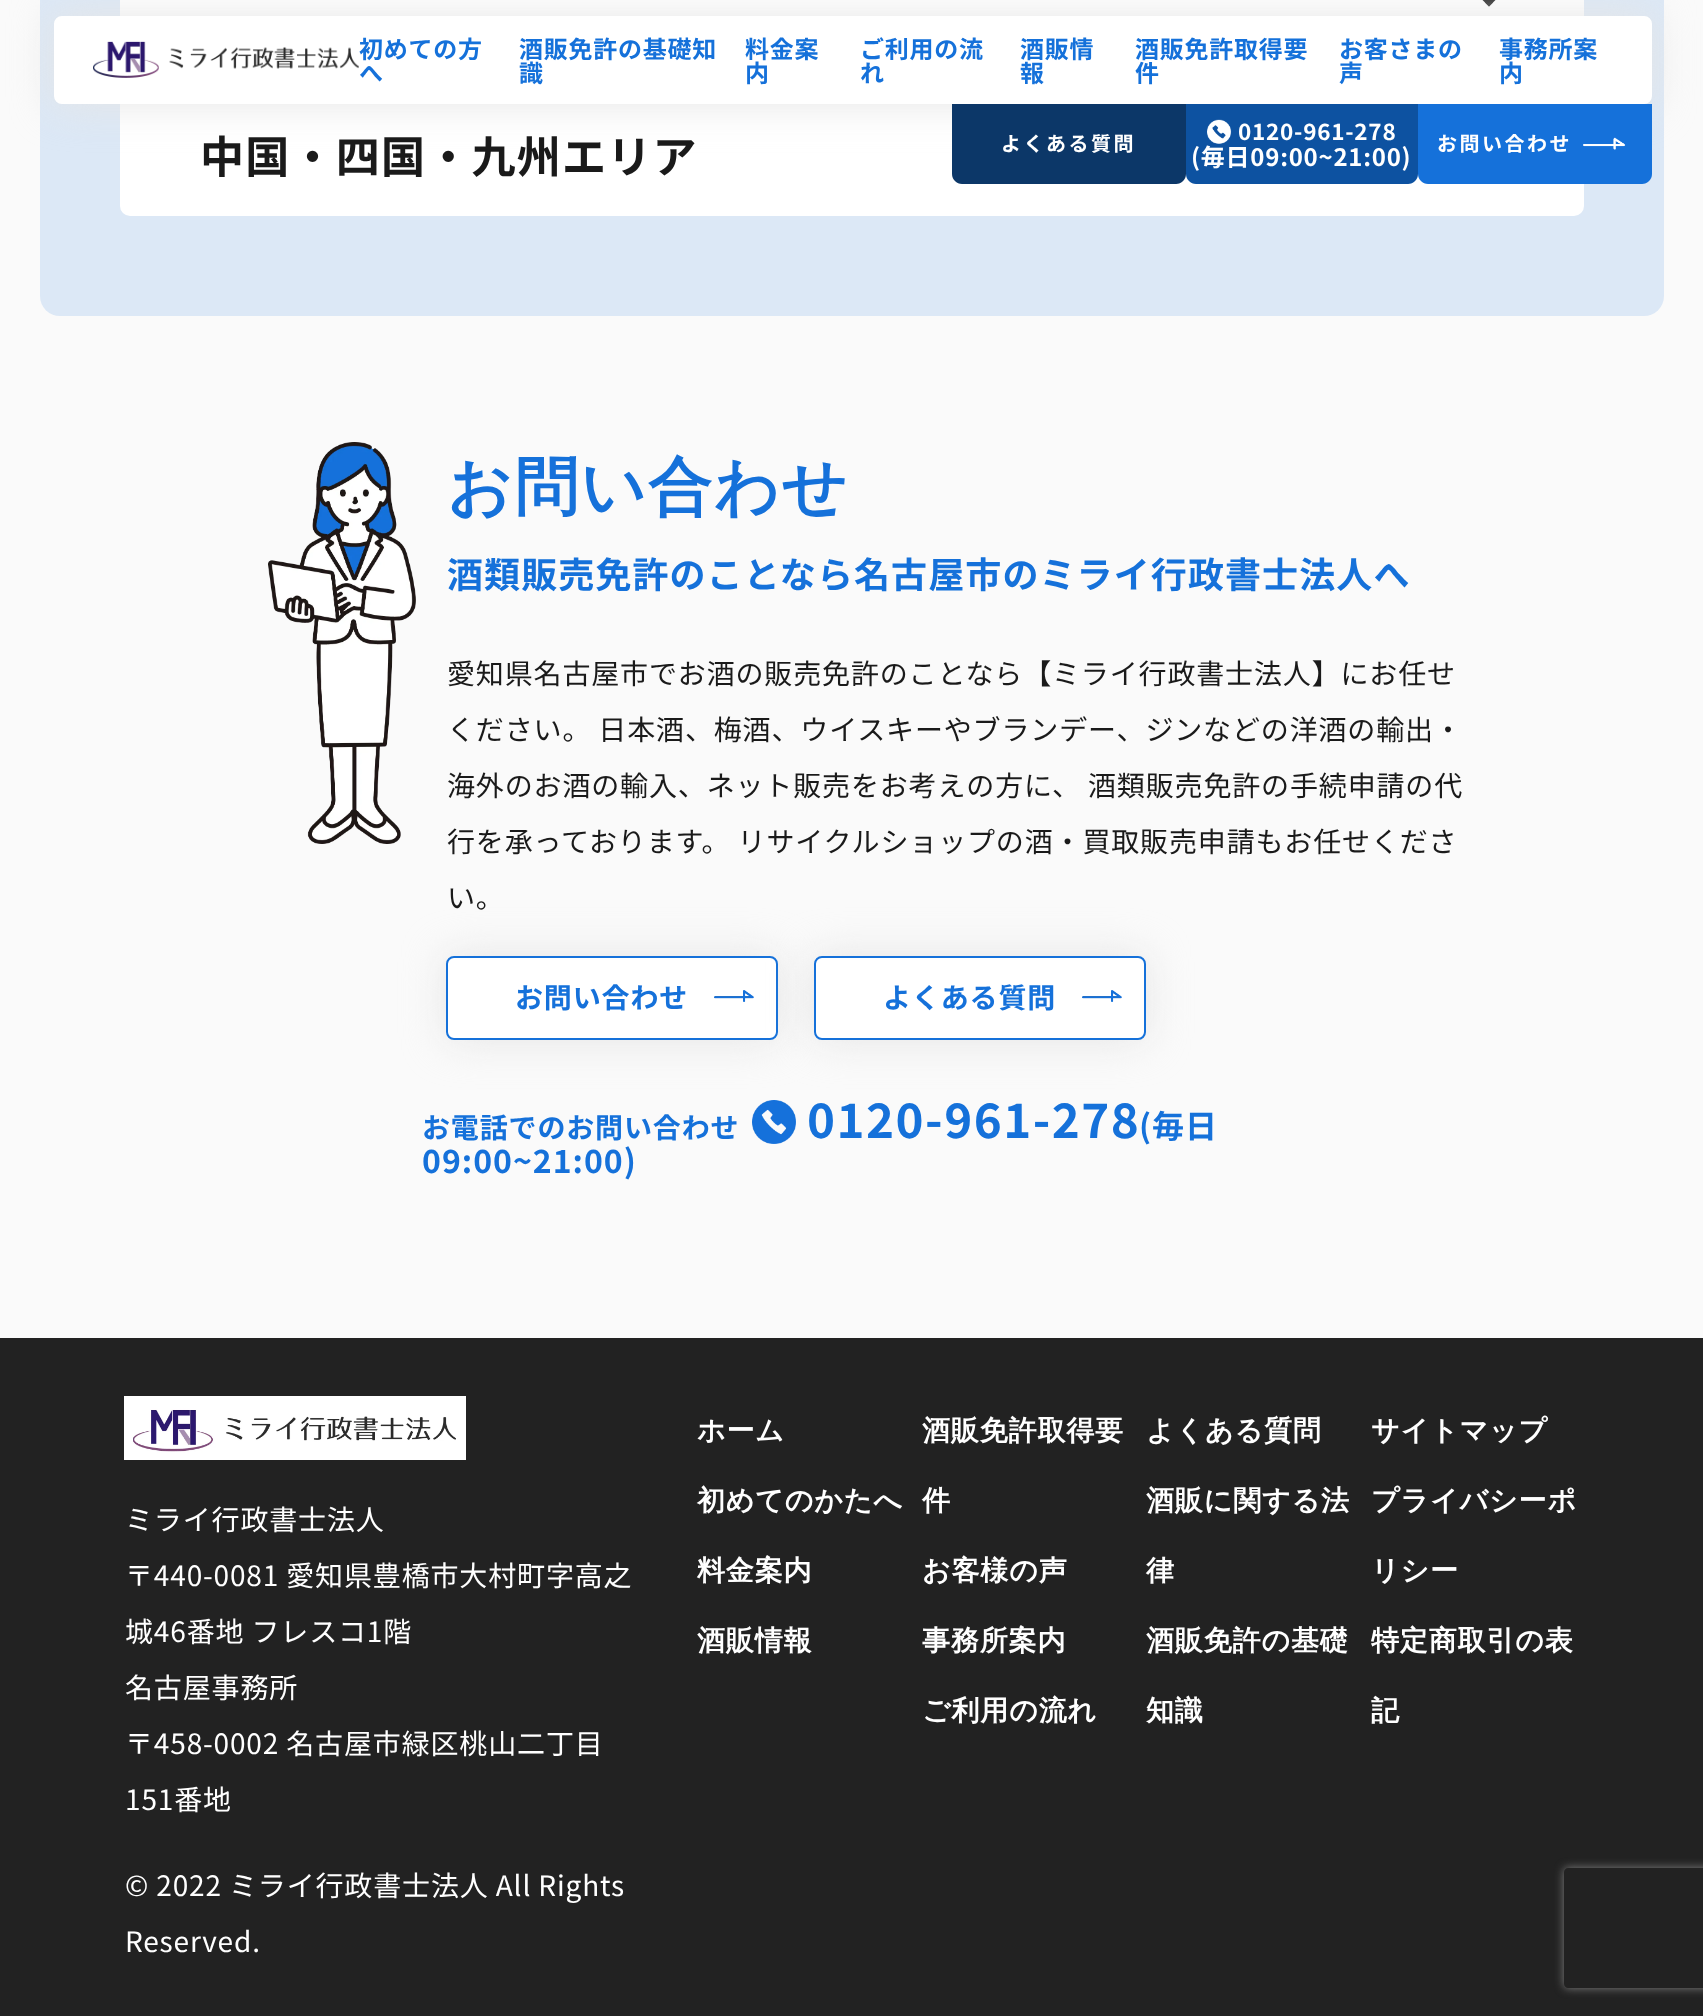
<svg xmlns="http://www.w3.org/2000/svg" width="1703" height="2016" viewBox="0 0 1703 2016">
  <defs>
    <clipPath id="clip1"><path d="M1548 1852H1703V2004H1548ZM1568 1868H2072C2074 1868 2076 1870 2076 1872V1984C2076 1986 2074 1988 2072 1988H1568C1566 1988 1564 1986 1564 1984V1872C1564 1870 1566 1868 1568 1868Z" clip-rule="evenodd"/></clipPath>
  </defs>
  <rect width="100%" height="100%" fill="rgb(250,250,250)"/>
  <rect x="40" y="-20" width="1624" height="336" rx="20" fill="rgb(220,232,246)"/>
  <rect x="120" y="0" width="1464" height="16" fill="rgb(255,255,255)"/>
  <path d="M1510-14.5L1489 6.5L1485 2.5L1506-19Z" fill="rgb(26,26,26)"/>
  <path d="M1493 2.5L1489 6.5L1468-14.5L1472-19Z" fill="rgb(26,26,26)"/>
  <rect x="120" y="92" width="1464" height="124" rx="10" fill="rgb(255,255,255)"/>
  <rect x="54" y="16" width="1598" height="88" rx="8" fill="rgb(229,229,229)" filter="blur(20px)"/>
  <rect x="55" y="17" width="1596" height="86" rx="7" fill="rgb(255,255,255)" stroke="rgb(255,255,255)" stroke-width="2"/>
  <image x="93" y="41" width="266" height="37" href="pic1.png"/>
  <g font-family="Noto Sans JP" font-size="24" font-weight="bold" letter-spacing="0.75" fill="rgb(21,113,218)">
    <text>
      <tspan x="359" y="58">初めての方</tspan>
      <tspan x="359" y="82">へ</tspan>
    </text>
    <text>
      <tspan x="519" y="58">酒販免許の基礎知</tspan>
      <tspan x="519" y="82">識</tspan>
    </text>
    <text>
      <tspan x="745" y="58">料金案</tspan>
      <tspan x="745" y="82">内</tspan>
    </text>
    <text>
      <tspan x="860" y="58">ご利用の流</tspan>
      <tspan x="860" y="82">れ</tspan>
    </text>
    <text>
      <tspan x="1020" y="58">酒販情</tspan>
      <tspan x="1020" y="82">報</tspan>
    </text>
    <text>
      <tspan x="1135" y="58">酒販免許取得要</tspan>
      <tspan x="1135" y="82">件</tspan>
    </text>
    <text>
      <tspan x="1339" y="58">お客さまの</tspan>
      <tspan x="1339" y="82">声</tspan>
    </text>
    <text>
      <tspan x="1499" y="58">事務所案</tspan>
      <tspan x="1499" y="82">内</tspan>
    </text>
  </g>
  <path d="M952 104H1186V174C1186 179.5 1181.5 184 1176 184H962C956.5 184 952 179.5 952 174Z" fill="rgb(12,55,104)"/>
  <text x="1001" y="151" font-family="Noto Sans JP" font-size="20" font-weight="bold" letter-spacing="2.5" fill="rgb(255,255,255)">よくある質問</text>
  <path d="M1186 104H1418V174C1418 179.5 1413.5 184 1408 184H1196C1190.5 184 1186 179.5 1186 174Z" fill="rgb(13,82,161)"/>
  <image x="1207" y="119" width="25" height="25" href="pic2.png"/>
  <text x="1238" y="140" font-family="Noto Sans JP" font-size="22.5" font-weight="bold" letter-spacing="0.75" fill="rgb(255,255,255)">0120-961-278</text>
  <text x="1191" y="166" font-family="Noto Sans JP" font-size="24" font-weight="bold" letter-spacing="0.75" fill="rgb(255,255,255)">(毎日09:00~21:00)</text>
  <path d="M1418 104H1652V174C1652 179.5 1647.5 184 1642 184H1428C1422.5 184 1418 179.5 1418 174Z" fill="rgb(21,113,218)"/>
  <text x="1437" y="151" font-family="Noto Sans JP" font-size="20" font-weight="bold" letter-spacing="2.5" fill="rgb(255,255,255)">お問い合わせ</text>
  <image x="1583" y="137" width="43" height="13" href="pic3.png"/>
  <text x="200" y="173" font-family="Noto Sans JP" font-size="44" font-weight="bold" letter-spacing="1.25" fill="rgb(26,26,26)">中国・四国・九州エリア</text>
  <image x="268" y="442" width="148" height="402" href="pic4.png"/>
  <text x="447" y="509" font-family="WenQuanYi Zen Hei" font-size="64" font-weight="bold" letter-spacing="2" fill="rgb(21,113,218)">お問い合わせ</text>
  <text x="447" y="588" font-family="Noto Sans JP" font-size="36" font-weight="bold" letter-spacing="1.1" fill="rgb(21,113,218)">酒類販売免許のことなら名古屋市のミライ行政書士法人へ</text>
  <g font-family="Noto Sans JP" font-size="28" font-weight="100" letter-spacing="0.85" fill="rgb(26,26,26)">
    <text x="447" y="684">愛知県名古屋市でお酒の販売免許のことなら【ミライ行政書士法人】にお任せ</text>
    <text x="447" y="740">ください。 日本酒、梅酒、ウイスキーやブランデー、ジンなどの洋酒の輸出・</text>
    <text x="447" y="796">海外のお酒の輸入、ネット販売をお考えの方に、 酒類販売免許の手続申請の代</text>
    <text x="447" y="852">行を承っております。 リサイクルショップの酒・買取販売申請もお任せくださ</text>
    <text x="447" y="908">い。</text>
  </g>
  <rect x="446" y="956" width="332" height="84" rx="8" fill="rgb(229,229,229)" filter="blur(20px)"/>
  <rect x="447" y="957" width="330" height="82" rx="7" fill="rgb(255,255,255)" stroke="rgb(21,113,218)" stroke-width="2"/>
  <text x="515" y="1008" font-family="Noto Sans JP" font-size="28" font-weight="bold" letter-spacing="0.85" fill="rgb(21,113,218)">お問い合わせ</text>
  <image x="714" y="990" width="40" height="12" href="pic5.png"/>
  <rect x="814" y="956" width="332" height="84" rx="8" fill="rgb(229,229,229)" filter="blur(20px)"/>
  <rect x="815" y="957" width="330" height="82" rx="7" fill="rgb(255,255,255)" stroke="rgb(21,113,218)" stroke-width="2"/>
  <text x="883" y="1008" font-family="Noto Sans JP" font-size="28" font-weight="bold" letter-spacing="0.85" fill="rgb(21,113,218)">よくある質問</text>
  <image x="1082" y="990" width="40" height="12" href="pic6.png"/>
  <text x="422" y="1138" font-family="Noto Sans JP" font-size="28" font-weight="bold" letter-spacing="0.85" fill="rgb(21,113,218)">お電話でのお問い合わせ</text>
  <image x="752" y="1100" width="44" height="44" href="pic7.png"/>
  <text x="807" y="1138" font-family="Noto Sans JP" font-size="47.5" font-weight="bold" letter-spacing="1.5" fill="rgb(21,113,218)">0120-961-278</text>
  <g font-family="Noto Sans JP" font-size="32" font-weight="bold" letter-spacing="1" fill="rgb(21,113,218)">
    <text x="1139" y="1138">(毎日</text>
    <text x="422" y="1173">09:00~21:00)</text>
  </g>
  <rect x="0" y="1338" width="1703" height="678" fill="rgb(34,34,34)"/>
  <image x="124" y="1396" width="342" height="64" href="pic8.png"/>
  <g font-family="Noto Sans JP" font-size="28" font-weight="100" letter-spacing="0.85" fill="rgb(255,255,255)">
    <text x="125" y="1530">ミライ行政書士法人</text>
    <text x="125" y="1586">〒440-0081 愛知県豊橋市大村町字高之</text>
    <text x="125" y="1642">城46番地 フレスコ1階</text>
    <text x="125" y="1698">名古屋事務所</text>
    <text x="125" y="1754">〒458-0002 名古屋市緑区桃山二丁目</text>
    <text x="125" y="1810">151番地</text>
    <text x="125" y="1896">© 2022 ミライ行政書士法人 All Rights</text>
    <text x="125" y="1952">Reserved.</text>
  </g>
  <g font-family="WenQuanYi Zen Hei" font-size="28" font-weight="bold" letter-spacing="0.85" fill="rgb(255,255,255)">
    <text x="697" y="1440">ホーム</text>
    <text x="697" y="1510">初めてのかたへ</text>
    <text x="697" y="1580">料金案内</text>
    <text x="697" y="1650">酒販情報</text>
    <text x="922" y="1440">酒販免許取得要</text>
    <text x="922" y="1510">件</text>
    <text x="922" y="1580">お客様の声</text>
    <text x="922" y="1650">事務所案内</text>
    <text x="922" y="1720">ご利用の流れ</text>
    <text x="1146" y="1440">よくある質問</text>
    <text x="1146" y="1510">酒販に関する法</text>
    <text x="1146" y="1580">律</text>
    <text x="1146" y="1650">酒販免許の基礎</text>
    <text x="1146" y="1720">知識</text>
    <text x="1371" y="1440">サイトマップ</text>
    <text x="1371" y="1510">プライバシーポ</text>
    <text x="1371" y="1580">リシー</text>
    <text x="1371" y="1650">特定商取引の表</text>
    <text x="1371" y="1720">記</text>
  </g>
  <g clip-path="url(#clip1)">
    <rect x="1564" y="1868" width="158" height="120" rx="4" fill="rgb(128,128,128)" filter="blur(5px)"/>
  </g>
</svg>
